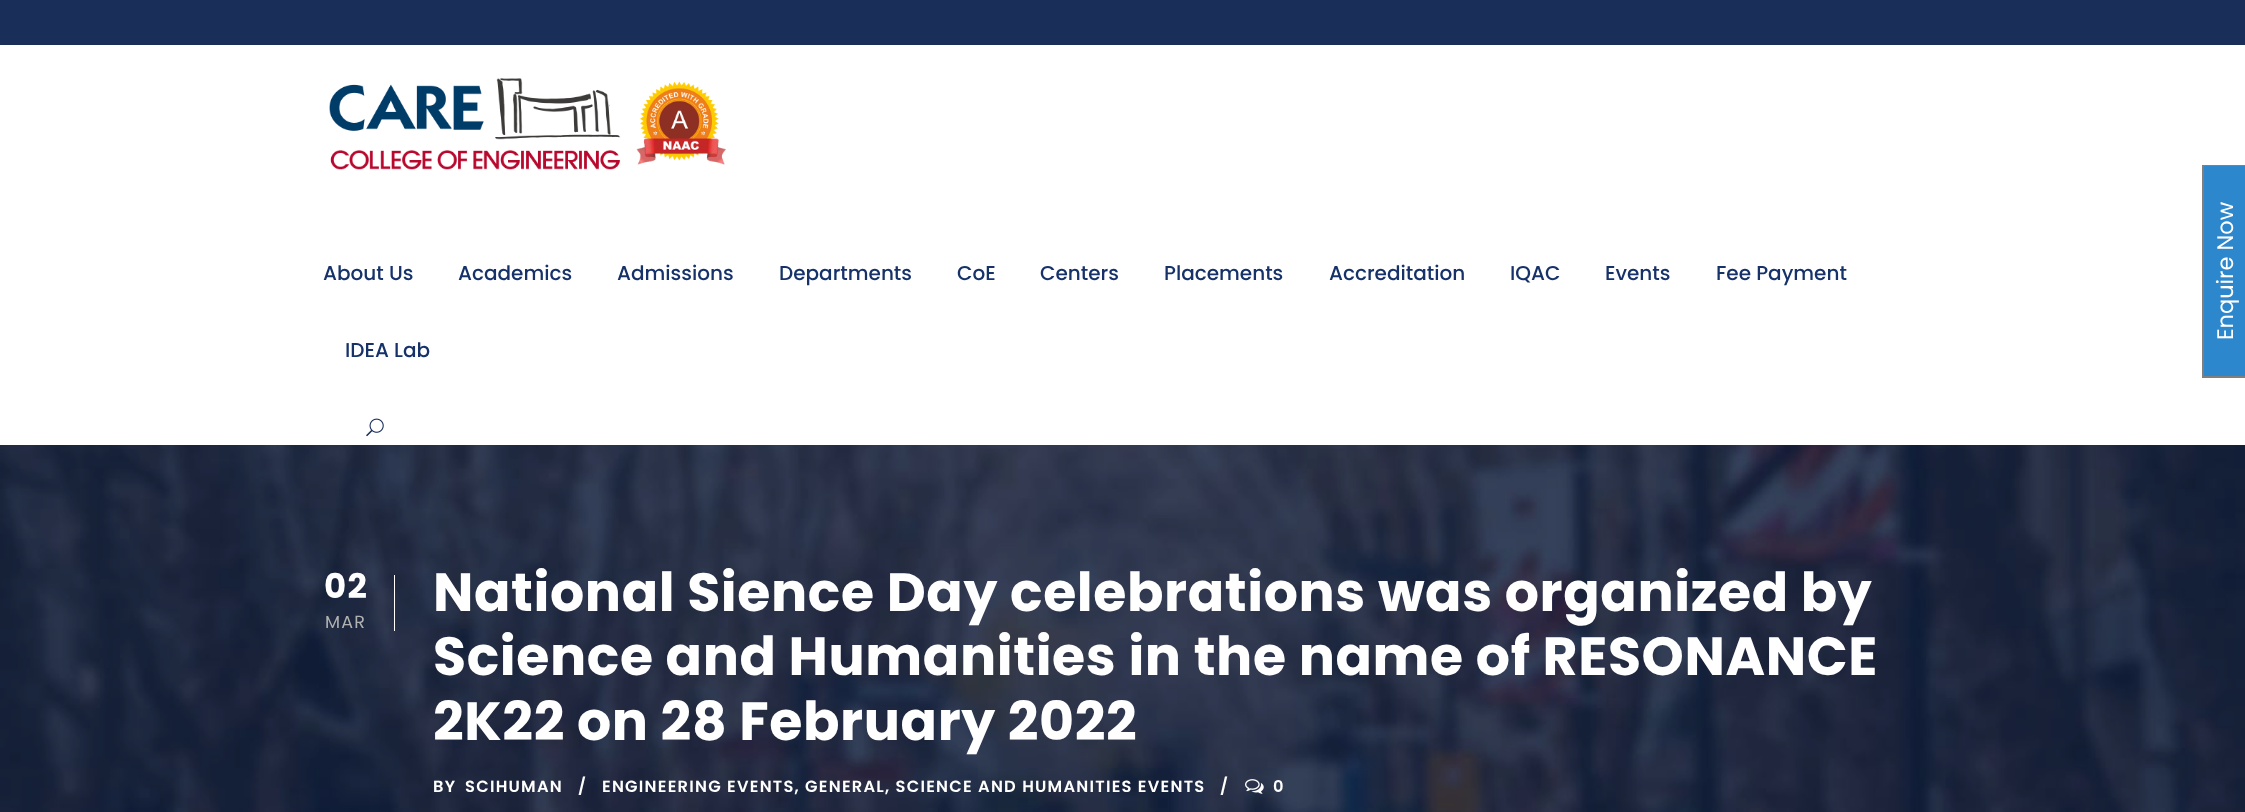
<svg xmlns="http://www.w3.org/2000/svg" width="2245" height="812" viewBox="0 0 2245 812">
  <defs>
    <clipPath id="clip1"><rect x="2" y="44" width="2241" height="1"/></clipPath>
  </defs>
  <rect width="100%" height="100%" fill="rgb(255,255,255)"/>
  <rect x="0" y="0" width="2245" height="45" fill="rgb(25,47,89)"/>
  <g clip-path="url(#clip1)">
    <rect x="0" y="46" width="2245" height="400" fill="rgba(0,0,0,0.1)" filter="blur(2.5px)"/>
  </g>
  <image x="329" y="78" width="397" height="92" href="pic1.png"/>
  <g font-family="Poppins" font-size="20" font-weight="500" fill="rgb(22,50,105)">
    <text x="323" y="280">About Us</text>
    <text x="458" y="280">Academics</text>
    <text x="617" y="280">Admissions</text>
    <text x="779" y="280">Departments</text>
    <text x="957" y="280">CoE</text>
    <text x="1040" y="280">Centers</text>
    <text x="1164" y="280">Placements</text>
    <text x="1329" y="280">Accreditation</text>
    <text x="1510" y="280">IQAC</text>
    <text x="1605" y="280">Events</text>
    <text x="1716" y="280">Fee Payment</text>
    <text x="345" y="357">IDEA Lab</text>
  </g>
  <image x="366" y="418" width="18" height="19" href="pic2.png"/>
  <image x="0" y="445" width="2245" height="367" href="pic3.png"/>
  <rect x="394" y="575" width="1" height="56" fill="rgb(255,255,255)"/>
  <text x="324" y="598" font-family="Poppins" font-size="34" font-weight="bold" letter-spacing="1.25" fill="rgb(255,255,255)">02</text>
  <text x="325" y="628" font-family="Poppins" font-size="17.5" letter-spacing="1.25" fill="rgb(177,177,177)">MAR</text>
  <g font-family="Poppins" font-size="53.75" font-weight="bold" letter-spacing="0.6" fill="rgb(255,255,255)">
    <text>
      <tspan x="433" y="611">National Sience Day celebrations was organized by</tspan>
      <tspan x="433" y="675">Science and Humanities in the name of RESONANCE</tspan>
      <tspan x="433" y="740">2K22 on 28 February 2022</tspan>
    </text>
  </g>
  <g font-family="Poppins" font-size="16.25" font-weight="600" letter-spacing="1.25" fill="rgb(255,255,255)">
    <text x="433" y="792">BY</text>
    <text x="465" y="792">SCIHUMAN</text>
    <text x="578" y="792">/</text>
    <text x="602" y="792">ENGINEERING EVENTS, GENERAL, SCIENCE AND HUMANITIES EVENTS</text>
    <text x="1220" y="792">/</text>
  </g>
  <image x="1245" y="779" width="19" height="15" href="pic4.png"/>
  <text x="1273" y="792" font-family="Poppins" font-size="16.25" font-weight="600" letter-spacing="1.25" fill="rgb(255,255,255)">0</text>
  <rect x="2204" y="166" width="41" height="210" fill="rgb(45,135,204)"/>
  <rect x="2202" y="165" width="2" height="213" fill="rgb(127,127,127)"/>
  <rect x="2202" y="165" width="43" height="1" fill="rgb(127,127,127)"/>
  <rect x="2202" y="376" width="43" height="2" fill="rgb(127,127,127)"/>
  <text x="2233" y="340" transform="rotate(-90 2233 340)" font-family="Poppins" font-size="22.5" fill="rgb(255,255,255)">Enquire Now</text>
</svg>
